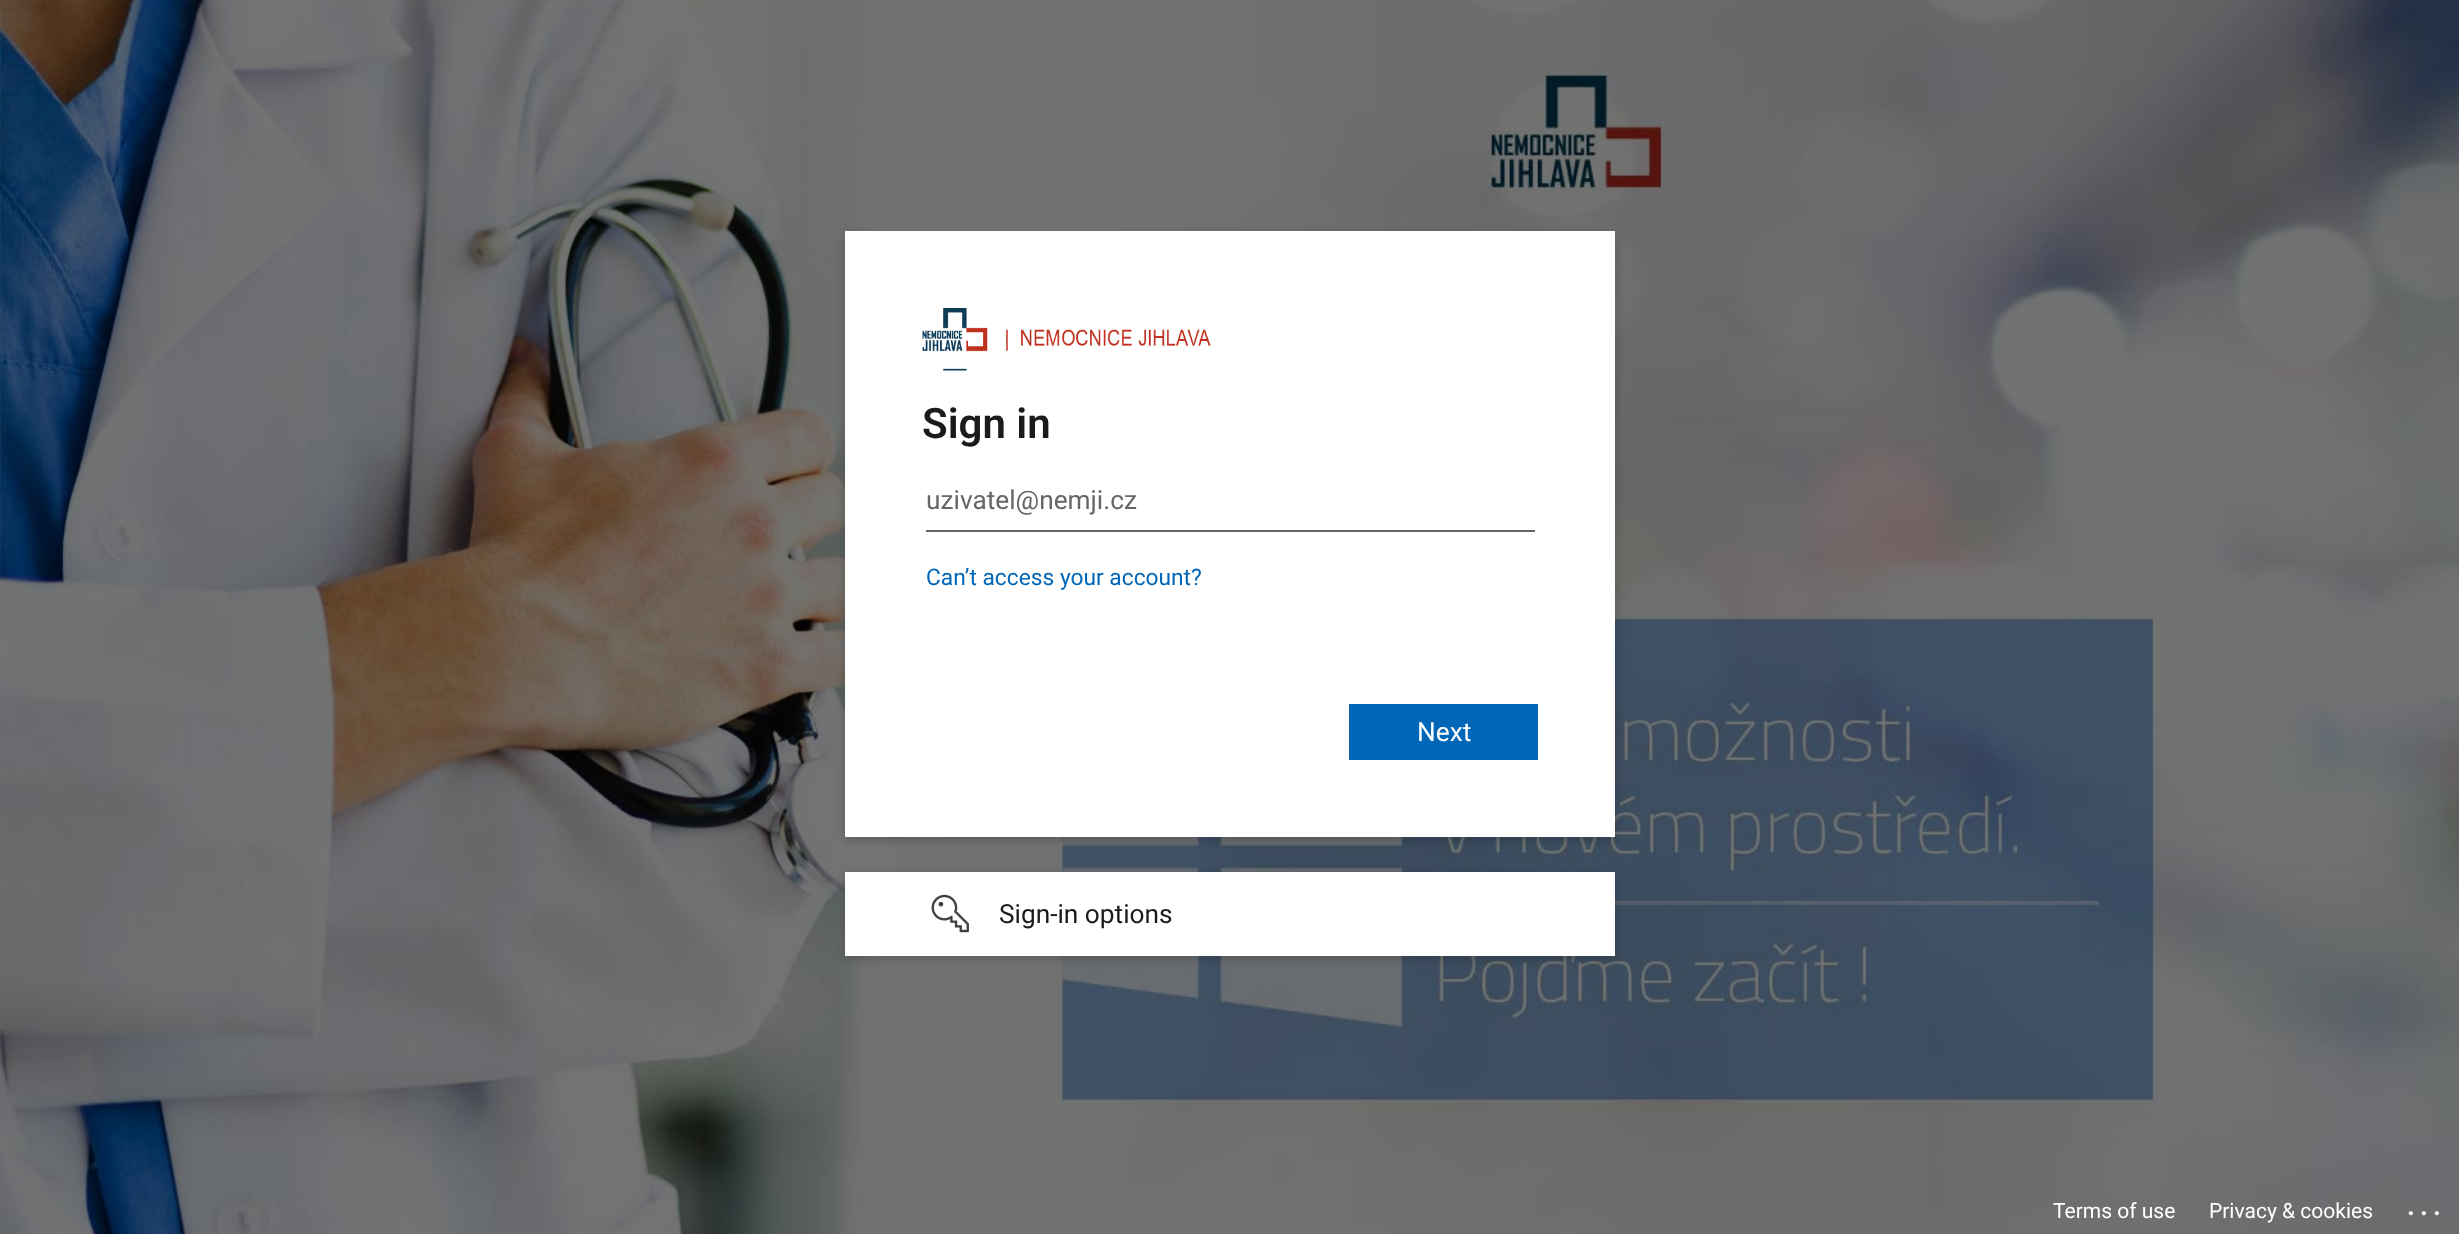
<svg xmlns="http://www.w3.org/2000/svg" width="2459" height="1234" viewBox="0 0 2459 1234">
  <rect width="100%" height="100%" fill="rgb(255,255,255)"/>
  <image x="0" y="0" width="2459" height="1234" href="pic1.png"/>
  <rect x="845" y="235" width="770" height="605" fill="rgba(0,0,0,0.2)" filter="blur(5px)"/>
  <rect x="845" y="231" width="770" height="606" fill="rgb(255,255,255)"/>
  <image x="922" y="308" width="289" height="63" href="pic2.png"/>
  <text x="922" y="438" font-family="Roboto" font-size="42" font-weight="600" fill="rgb(27,27,27)">Sign in</text>
  <rect x="926" y="530" width="609" height="2" fill="rgb(102,102,102)"/>
  <text x="926" y="509" font-family="Roboto" font-size="26.25" fill="rgb(102,102,102)">uzivatel@nemji.cz</text>
  <text x="926" y="585" font-family="Roboto" font-size="22.75" fill="rgb(0,103,184)">Can’t access your account?</text>
  <rect x="1349" y="704" width="189" height="56" fill="rgb(0,103,184)"/>
  <text x="1417" y="741" font-family="Roboto" font-size="26.25" fill="rgb(255,255,255)">Next</text>
  <rect x="845" y="875" width="770" height="84" fill="rgba(0,0,0,0.2)" filter="blur(5px)"/>
  <rect x="845" y="872" width="770" height="84" fill="rgb(255,255,255)"/>
  <image x="931" y="894" width="38" height="39" href="pic3.png"/>
  <text x="999" y="923" font-family="Roboto" font-size="26.25" fill="rgb(27,27,27)">Sign-in options</text>
  <g font-family="Roboto" font-size="21" fill="rgb(255,255,255)">
    <text x="2053" y="1218">Terms of use</text>
    <text x="2209" y="1218">Privacy &amp; cookies</text>
  </g>
  <text x="2407" y="1215" font-family="Roboto" font-size="28" font-weight="600" letter-spacing="5" fill="rgb(255,255,255)">...</text>
</svg>
